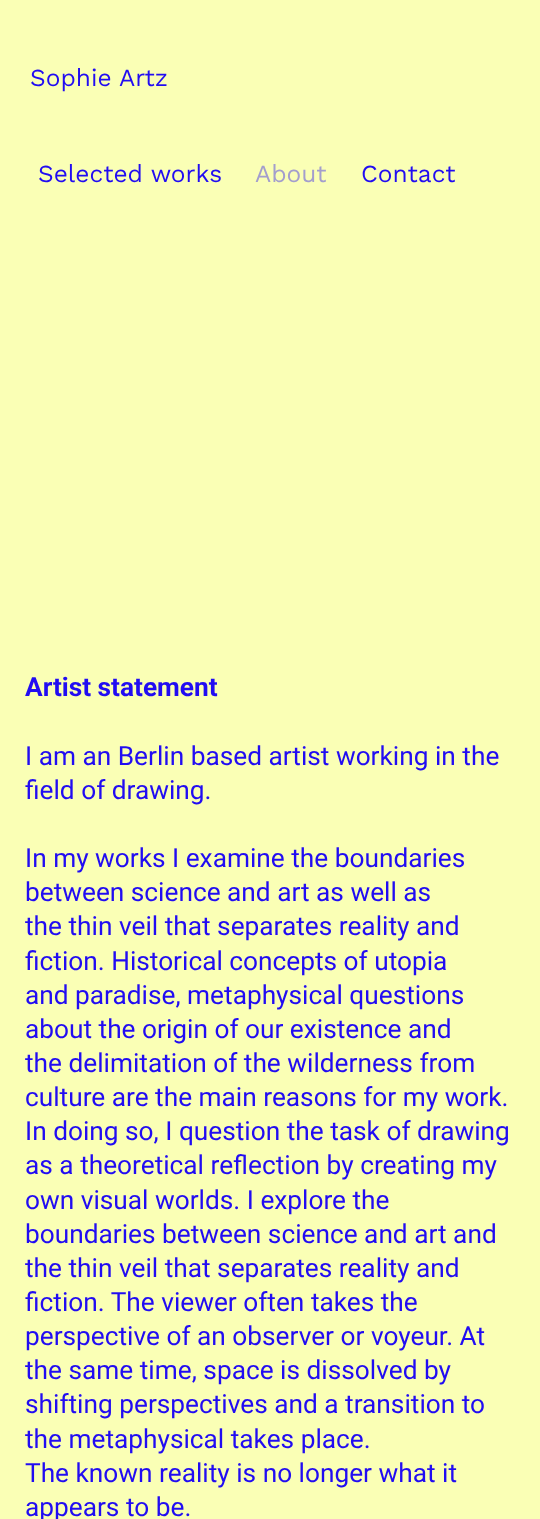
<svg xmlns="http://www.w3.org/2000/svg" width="540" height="1519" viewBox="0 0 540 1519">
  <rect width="100%" height="100%" fill="rgb(250,255,181)"/>
  <g font-family="Work Sans" font-size="24.5" fill="rgb(33,12,242)">
    <text x="30" y="86">Sophie Artz</text>
    <text x="38" y="182">Selected works</text>
  </g>
  <text x="255" y="182" font-family="Work Sans" font-size="24.5" fill="rgb(163,158,205)">About</text>
  <text x="361" y="182" font-family="Work Sans" font-size="24.5" fill="rgb(33,12,242)">Contact</text>
  <text x="25" y="696" font-family="Roboto" font-size="26.25" font-weight="bold" fill="rgb(33,12,242)">Artist statement</text>
  <g font-family="Roboto" font-size="26.25" fill="rgb(33,12,242)">
    <text>
      <tspan x="25" y="765">I am an Berlin based artist working in the</tspan>
      <tspan x="25" y="799">field of drawing.</tspan>
    </text>
    <text>
      <tspan x="25" y="867">In my works I examine the boundaries</tspan>
      <tspan x="25" y="901">between science and art as well as</tspan>
      <tspan x="25" y="935">the thin veil that separates reality and</tspan>
      <tspan x="25" y="970">fiction. Historical concepts of utopia</tspan>
      <tspan x="25" y="1004">and paradise, metaphysical questions</tspan>
      <tspan x="25" y="1038">about the origin of our existence and</tspan>
      <tspan x="25" y="1072">the delimitation of the wilderness from</tspan>
      <tspan x="25" y="1106">culture are the main reasons for my work.</tspan>
      <tspan x="25" y="1140">In doing so, I question the task of drawing</tspan>
      <tspan x="25" y="1174">as a theoretical reflection by creating my</tspan>
      <tspan x="25" y="1209">own visual worlds. I explore the</tspan>
      <tspan x="25" y="1243">boundaries between science and art and</tspan>
      <tspan x="25" y="1277">the thin veil that separates reality and</tspan>
      <tspan x="25" y="1311">fiction. The viewer often takes the</tspan>
      <tspan x="25" y="1345">perspective of an observer or voyeur. At</tspan>
      <tspan x="25" y="1379">the same time, space is dissolved by</tspan>
      <tspan x="25" y="1413">shifting perspectives and a transition to</tspan>
      <tspan x="25" y="1448">the metaphysical takes place.</tspan>
      <tspan x="25" y="1482">The known reality is no longer what it</tspan>
      <tspan x="25" y="1516">appears to be.</tspan>
    </text>
  </g>
</svg>
